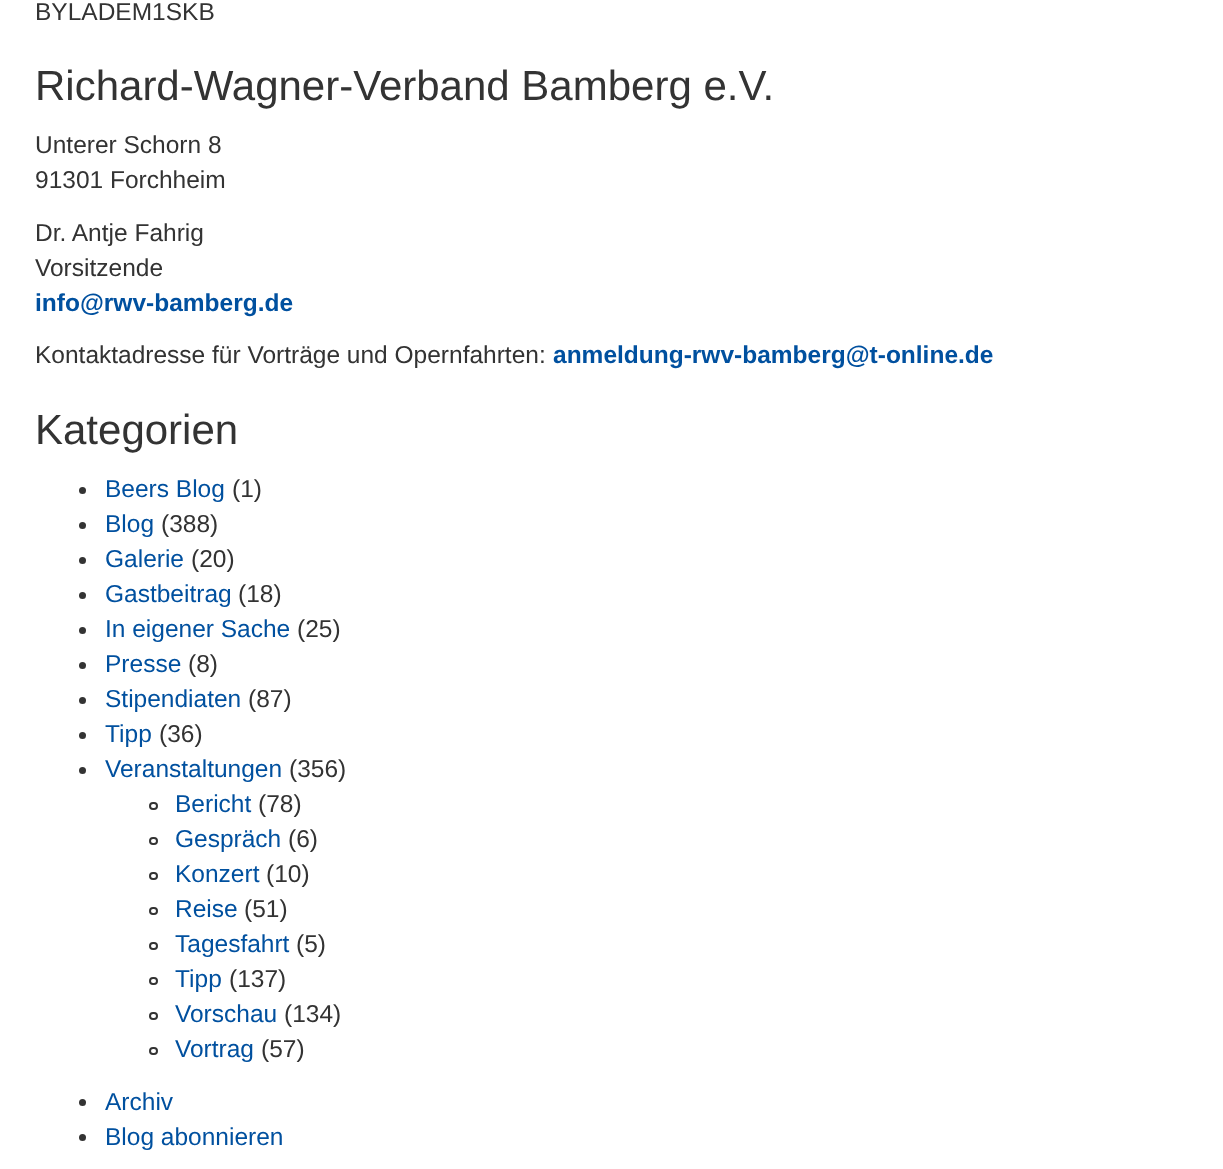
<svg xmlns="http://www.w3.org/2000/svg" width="1223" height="1169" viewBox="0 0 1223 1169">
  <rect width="100%" height="100%" fill="rgb(255,255,255)"/>
  <text x="35" y="20" font-family="Liberation Sans" font-size="24.5" fill="rgb(51,51,51)">BYLADEM1SKB</text>
  <text x="35" y="100" font-family="Liberation Sans" font-size="42" fill="rgb(51,51,51)">Richard-Wagner-Verband Bamberg e.V.</text>
  <g font-family="Liberation Sans" font-size="24.5" fill="rgb(51,51,51)">
    <text>
      <tspan x="35" y="153">Unterer Schorn 8</tspan>
      <tspan x="35" y="188">91301 Forchheim</tspan>
    </text>
    <text>
      <tspan x="35" y="241">Dr. Antje Fahrig</tspan>
      <tspan x="35" y="276">Vorsitzende</tspan>
    </text>
  </g>
  <text x="35" y="311" font-family="Liberation Sans" font-size="24.5" font-weight="bold" fill="rgb(0,80,159)">info@rwv-bamberg.de</text>
  <text x="35" y="363" font-family="Liberation Sans" font-size="24.5" fill="rgb(51,51,51)">Kontaktadresse für Vorträge und Opernfahrten:</text>
  <text x="553" y="363" font-family="Liberation Sans" font-size="24.5" font-weight="bold" fill="rgb(0,80,159)">anmeldung-rwv-bamberg@t-online.de</text>
  <text x="35" y="444" font-family="Liberation Sans" font-size="42" fill="rgb(51,51,51)">Kategorien</text>
  <circle cx="82.5" cy="490.5" r="3.5" fill="rgb(51,51,51)"/>
  <text x="105" y="497" font-family="Liberation Sans" font-size="24.5" fill="rgb(0,80,159)">Beers Blog</text>
  <text x="232" y="497" font-family="Liberation Sans" font-size="24.5" fill="rgb(51,51,51)">(1)</text>
  <circle cx="82.5" cy="525.5" r="3.5" fill="rgb(51,51,51)"/>
  <text x="105" y="532" font-family="Liberation Sans" font-size="24.5" fill="rgb(0,80,159)">Blog</text>
  <text x="161" y="532" font-family="Liberation Sans" font-size="24.5" fill="rgb(51,51,51)">(388)</text>
  <circle cx="82.5" cy="560.5" r="3.5" fill="rgb(51,51,51)"/>
  <text x="105" y="567" font-family="Liberation Sans" font-size="24.5" fill="rgb(0,80,159)">Galerie</text>
  <text x="191" y="567" font-family="Liberation Sans" font-size="24.5" fill="rgb(51,51,51)">(20)</text>
  <circle cx="82.5" cy="595.5" r="3.5" fill="rgb(51,51,51)"/>
  <text x="105" y="602" font-family="Liberation Sans" font-size="24.5" fill="rgb(0,80,159)">Gastbeitrag</text>
  <text x="238" y="602" font-family="Liberation Sans" font-size="24.5" fill="rgb(51,51,51)">(18)</text>
  <circle cx="82.5" cy="630.5" r="3.5" fill="rgb(51,51,51)"/>
  <text x="105" y="637" font-family="Liberation Sans" font-size="24.5" fill="rgb(0,80,159)">In eigener Sache</text>
  <text x="297" y="637" font-family="Liberation Sans" font-size="24.5" fill="rgb(51,51,51)">(25)</text>
  <circle cx="82.5" cy="665.5" r="3.5" fill="rgb(51,51,51)"/>
  <text x="105" y="672" font-family="Liberation Sans" font-size="24.5" fill="rgb(0,80,159)">Presse</text>
  <text x="188" y="672" font-family="Liberation Sans" font-size="24.5" fill="rgb(51,51,51)">(8)</text>
  <circle cx="82.5" cy="700.5" r="3.5" fill="rgb(51,51,51)"/>
  <text x="105" y="707" font-family="Liberation Sans" font-size="24.5" fill="rgb(0,80,159)">Stipendiaten</text>
  <text x="248" y="707" font-family="Liberation Sans" font-size="24.5" fill="rgb(51,51,51)">(87)</text>
  <circle cx="82.5" cy="735.5" r="3.5" fill="rgb(51,51,51)"/>
  <text x="105" y="742" font-family="Liberation Sans" font-size="24.5" fill="rgb(0,80,159)">Tipp</text>
  <text x="159" y="742" font-family="Liberation Sans" font-size="24.5" fill="rgb(51,51,51)">(36)</text>
  <circle cx="82.5" cy="770.5" r="3.5" fill="rgb(51,51,51)"/>
  <text x="105" y="777" font-family="Liberation Sans" font-size="24.5" fill="rgb(0,80,159)">Veranstaltungen</text>
  <text x="289" y="777" font-family="Liberation Sans" font-size="24.5" fill="rgb(51,51,51)">(356)</text>
  <rect x="150" y="803" width="7" height="6" rx="3" fill="none" stroke="rgb(51,51,51)" stroke-width="2"/>
  <text x="175" y="812" font-family="Liberation Sans" font-size="24.5" fill="rgb(0,80,159)">Bericht</text>
  <text x="258" y="812" font-family="Liberation Sans" font-size="24.5" fill="rgb(51,51,51)">(78)</text>
  <rect x="150" y="838" width="7" height="6" rx="3" fill="none" stroke="rgb(51,51,51)" stroke-width="2"/>
  <text x="175" y="847" font-family="Liberation Sans" font-size="24.5" fill="rgb(0,80,159)">Gespräch</text>
  <text x="288" y="847" font-family="Liberation Sans" font-size="24.5" fill="rgb(51,51,51)">(6)</text>
  <rect x="150" y="873" width="7" height="6" rx="3" fill="none" stroke="rgb(51,51,51)" stroke-width="2"/>
  <text x="175" y="882" font-family="Liberation Sans" font-size="24.5" fill="rgb(0,80,159)">Konzert</text>
  <text x="266" y="882" font-family="Liberation Sans" font-size="24.5" fill="rgb(51,51,51)">(10)</text>
  <rect x="150" y="908" width="7" height="6" rx="3" fill="none" stroke="rgb(51,51,51)" stroke-width="2"/>
  <text x="175" y="917" font-family="Liberation Sans" font-size="24.5" fill="rgb(0,80,159)">Reise</text>
  <text x="244" y="917" font-family="Liberation Sans" font-size="24.5" fill="rgb(51,51,51)">(51)</text>
  <rect x="150" y="943" width="7" height="6" rx="3" fill="none" stroke="rgb(51,51,51)" stroke-width="2"/>
  <text x="175" y="952" font-family="Liberation Sans" font-size="24.5" fill="rgb(0,80,159)">Tagesfahrt</text>
  <text x="296" y="952" font-family="Liberation Sans" font-size="24.5" fill="rgb(51,51,51)">(5)</text>
  <rect x="150" y="978" width="7" height="6" rx="3" fill="none" stroke="rgb(51,51,51)" stroke-width="2"/>
  <text x="175" y="987" font-family="Liberation Sans" font-size="24.5" fill="rgb(0,80,159)">Tipp</text>
  <text x="229" y="987" font-family="Liberation Sans" font-size="24.5" fill="rgb(51,51,51)">(137)</text>
  <rect x="150" y="1013" width="7" height="6" rx="3" fill="none" stroke="rgb(51,51,51)" stroke-width="2"/>
  <text x="175" y="1022" font-family="Liberation Sans" font-size="24.5" fill="rgb(0,80,159)">Vorschau</text>
  <text x="284" y="1022" font-family="Liberation Sans" font-size="24.5" fill="rgb(51,51,51)">(134)</text>
  <rect x="150" y="1048" width="7" height="6" rx="3" fill="none" stroke="rgb(51,51,51)" stroke-width="2"/>
  <text x="175" y="1057" font-family="Liberation Sans" font-size="24.5" fill="rgb(0,80,159)">Vortrag</text>
  <text x="261" y="1057" font-family="Liberation Sans" font-size="24.5" fill="rgb(51,51,51)">(57)</text>
  <circle cx="82.5" cy="1102.5" r="3.5" fill="rgb(51,51,51)"/>
  <text x="105" y="1110" font-family="Liberation Sans" font-size="24.5" fill="rgb(0,80,159)">Archiv</text>
  <circle cx="82.5" cy="1137.5" r="3.5" fill="rgb(51,51,51)"/>
  <text x="105" y="1145" font-family="Liberation Sans" font-size="24.5" fill="rgb(0,80,159)">Blog abonnieren</text>
</svg>
